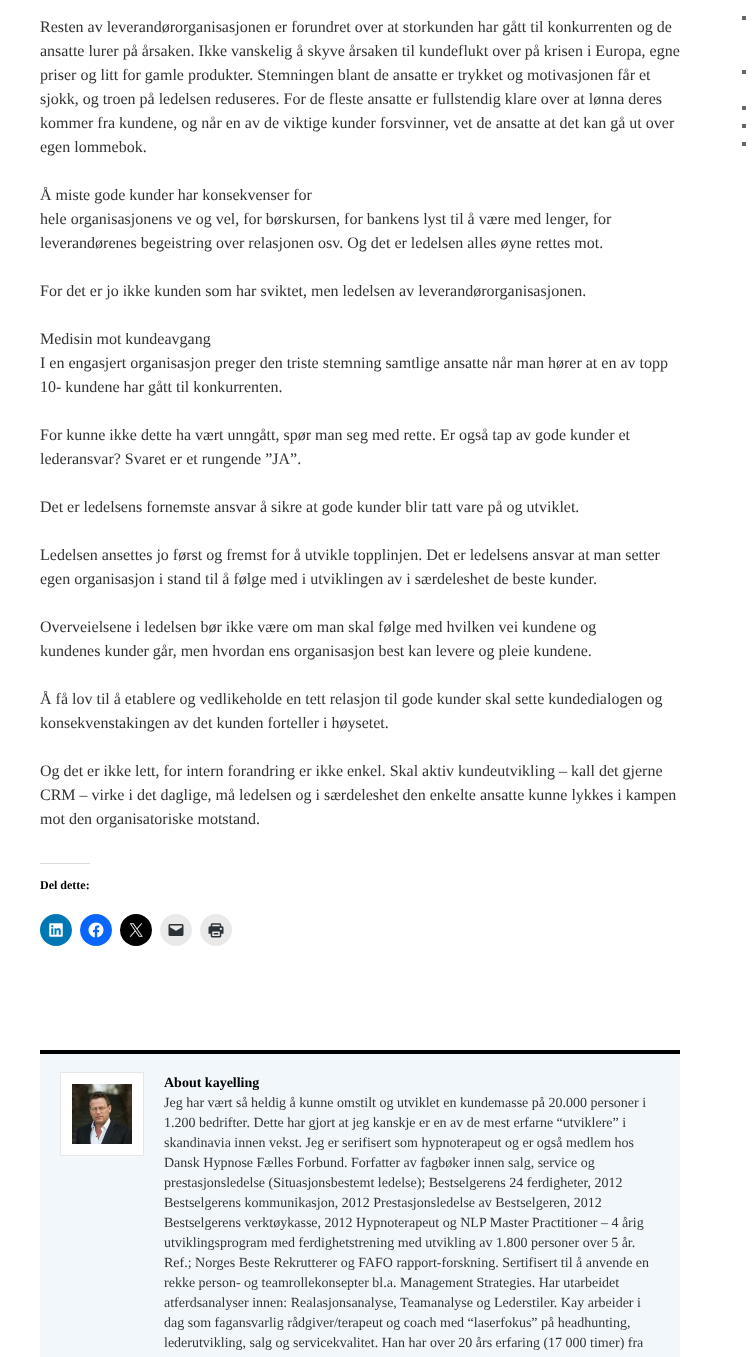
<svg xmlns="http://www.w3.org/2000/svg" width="755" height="1357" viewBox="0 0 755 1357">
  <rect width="100%" height="100%" fill="rgb(255,255,255)"/>
  <g font-family="Liberation Serif" font-size="16" fill="rgb(51,51,51)">
    <text>
      <tspan x="40" y="32">Resten av leverandørorganisasjonen er forundret over at storkunden har gått til konkurrenten og de</tspan>
      <tspan x="40" y="56">ansatte lurer på årsaken. Ikke vanskelig å skyve årsaken til kundeflukt over på krisen i Europa, egne</tspan>
      <tspan x="40" y="80">priser og litt for gamle produkter. Stemningen blant de ansatte er trykket og motivasjonen får et</tspan>
      <tspan x="40" y="104">sjokk, og troen på ledelsen reduseres. For de fleste ansatte er fullstendig klare over at lønna deres</tspan>
      <tspan x="40" y="128">kommer fra kundene, og når en av de viktige kunder forsvinner, vet de ansatte at det kan gå ut over</tspan>
      <tspan x="40" y="152">egen lommebok.</tspan>
    </text>
    <text>
      <tspan x="40" y="200">Å miste gode kunder har konsekvenser for</tspan>
      <tspan x="40" y="224">hele organisasjonens ve og vel, for børskursen, for bankens lyst til å være med lenger, for</tspan>
      <tspan x="40" y="248">leverandørenes begeistring over relasjonen osv. Og det er ledelsen alles øyne rettes mot.</tspan>
    </text>
    <text x="40" y="296">For det er jo ikke kunden som har sviktet, men ledelsen av leverandørorganisasjonen.</text>
    <text>
      <tspan x="40" y="344">Medisin mot kundeavgang</tspan>
      <tspan x="40" y="368">I en engasjert organisasjon preger den triste stemning samtlige ansatte når man hører at en av topp</tspan>
      <tspan x="40" y="392">10- kundene har gått til konkurrenten.</tspan>
    </text>
    <text>
      <tspan x="40" y="440">For kunne ikke dette ha vært unngått, spør man seg med rette. Er også tap av gode kunder et</tspan>
      <tspan x="40" y="464">lederansvar? Svaret er et rungende ”JA”.</tspan>
    </text>
    <text x="40" y="512">Det er ledelsens fornemste ansvar å sikre at gode kunder blir tatt vare på og utviklet.</text>
    <text>
      <tspan x="40" y="560">Ledelsen ansettes jo først og fremst for å utvikle topplinjen. Det er ledelsens ansvar at man setter</tspan>
      <tspan x="40" y="584">egen organisasjon i stand til å følge med i utviklingen av i særdeleshet de beste kunder.</tspan>
    </text>
    <text>
      <tspan x="40" y="632">Overveielsene i ledelsen bør ikke være om man skal følge med hvilken vei kundene og</tspan>
      <tspan x="40" y="656">kundenes kunder går, men hvordan ens organisasjon best kan levere og pleie kundene.</tspan>
    </text>
    <text>
      <tspan x="40" y="704">Å få lov til å etablere og vedlikeholde en tett relasjon til gode kunder skal sette kundedialogen og</tspan>
      <tspan x="40" y="728">konsekvenstakingen av det kunden forteller i høysetet.</tspan>
    </text>
    <text>
      <tspan x="40" y="776">Og det er ikke lett, for intern forandring er ikke enkel. Skal aktiv kundeutvikling – kall det gjerne</tspan>
      <tspan x="40" y="800">CRM – virke i det daglige, må ledelsen og i særdeleshet den enkelte ansatte kunne lykkes i kampen</tspan>
      <tspan x="40" y="824">mot den organisatoriske motstand.</tspan>
    </text>
  </g>
  <rect x="40" y="863" width="50" height="1" fill="rgb(220,220,222)"/>
  <text x="40" y="889" font-family="Liberation Serif" font-size="12" font-weight="bold" fill="rgb(0,0,0)">Del dette:</text>
  <circle cx="56" cy="930" r="16" fill="rgb(0,119,181)"/>
  <image x="49" y="923" width="14" height="14" href="pic1.png"/>
  <circle cx="96" cy="930" r="16" fill="rgb(8,102,255)"/>
  <image x="88" y="922" width="16" height="16" href="pic2.png"/>
  <circle cx="136" cy="930" r="16" fill="rgb(0,0,0)"/>
  <image x="129" y="923" width="14" height="14" href="pic3.png"/>
  <circle cx="176" cy="930" r="16" fill="rgb(233,233,233)"/>
  <image x="168" y="924" width="16" height="12" href="pic4.png"/>
  <circle cx="216" cy="930" r="16" fill="rgb(233,233,233)"/>
  <image x="208" y="923" width="16" height="15" href="pic5.png"/>
  <rect x="40" y="1054" width="640" height="303" fill="rgb(242,247,252)"/>
  <rect x="40" y="1050" width="640" height="4" fill="rgb(0,0,0)"/>
  <rect x="60.5" y="1072.5" width="83" height="83" fill="rgb(255,255,255)" stroke="rgb(231,231,231)"/>
  <image x="72" y="1084" width="60" height="60" href="pic6.png"/>
  <text x="164" y="1087" font-family="Liberation Serif" font-size="14" font-weight="bold" fill="rgb(0,0,0)">About kayelling</text>
  <g font-family="Liberation Serif" font-size="14" fill="rgb(51,51,51)">
    <text>
      <tspan x="164" y="1107">Jeg har vært så heldig å kunne omstilt og utviklet en kundemasse på 20.000 personer i</tspan>
      <tspan x="164" y="1127">1.200 bedrifter. Dette har gjort at jeg kanskje er en av de mest erfarne “utviklere” i</tspan>
      <tspan x="164" y="1147">skandinavia innen vekst. Jeg er serifisert som hypnoterapeut og er også medlem hos</tspan>
      <tspan x="164" y="1167">Dansk Hypnose Fælles Forbund. Forfatter av fagbøker innen salg, service og</tspan>
      <tspan x="164" y="1187">prestasjonsledelse (Situasjonsbestemt ledelse); Bestselgerens 24 ferdigheter, 2012</tspan>
      <tspan x="164" y="1207">Bestselgerens kommunikasjon, 2012 Prestasjonsledelse av Bestselgeren, 2012</tspan>
      <tspan x="164" y="1227">Bestselgerens verktøykasse, 2012 Hypnoterapeut og NLP Master Practitioner – 4 årig</tspan>
      <tspan x="164" y="1247">utviklingsprogram med ferdighetstrening med utvikling av 1.800 personer over 5 år.</tspan>
      <tspan x="164" y="1267">Ref.; Norges Beste Rekrutterer og FAFO rapport-forskning. Sertifisert til å anvende en</tspan>
      <tspan x="164" y="1287">rekke person- og teamrollekonsepter bl.a. Management Strategies. Har utarbeidet</tspan>
      <tspan x="164" y="1307">atferdsanalyser innen: Realasjonsanalyse, Teamanalyse og Lederstiler. Kay arbeider i</tspan>
      <tspan x="164" y="1327">dag som fagansvarlig rådgiver/terapeut og coach med “laserfokus” på headhunting,</tspan>
      <tspan x="164" y="1347">lederutvikling, salg og servicekvalitet. Han har over 20 års erfaring (17 000 timer) fra</tspan>
    </text>
  </g>
  <rect x="742" y="16" width="4" height="4" fill="rgb(102,102,102)"/>
  <rect x="742" y="70" width="4" height="4" fill="rgb(102,102,102)"/>
  <rect x="742" y="106" width="4" height="4" fill="rgb(102,102,102)"/>
  <rect x="742" y="124" width="4" height="4" fill="rgb(102,102,102)"/>
  <rect x="742" y="142" width="4" height="4" fill="rgb(102,102,102)"/>
</svg>
